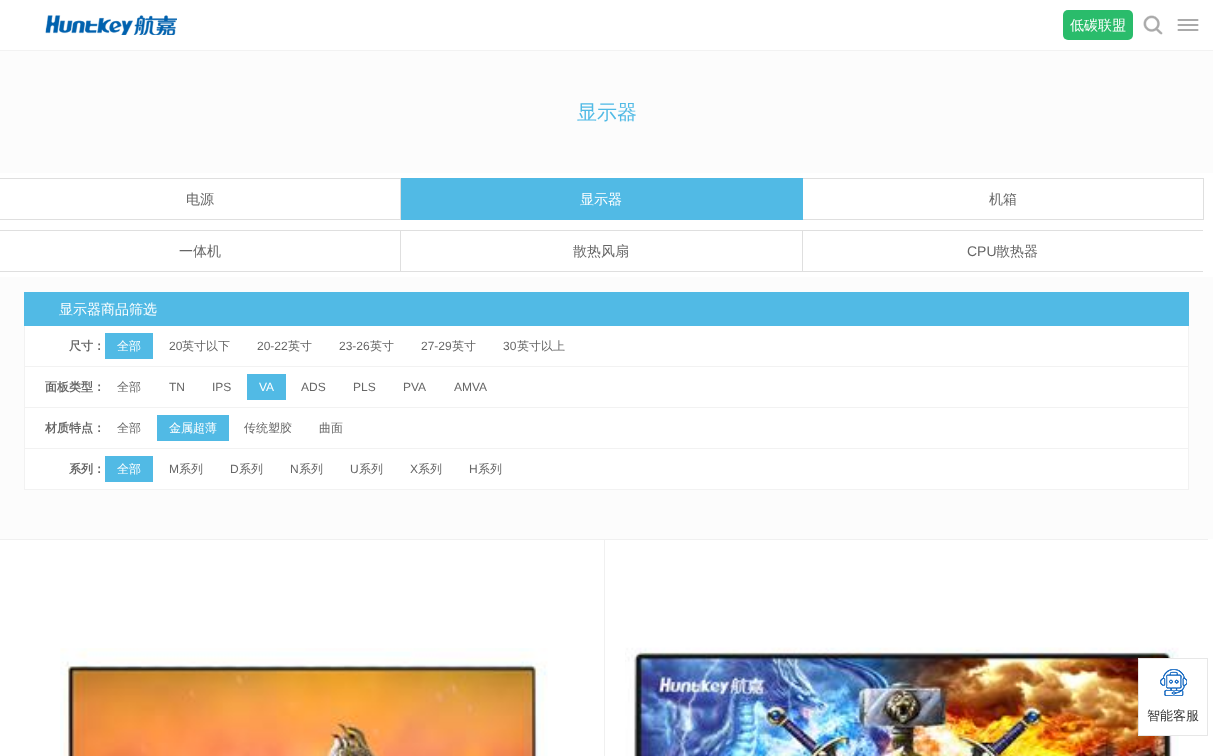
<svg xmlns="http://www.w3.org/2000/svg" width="1213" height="756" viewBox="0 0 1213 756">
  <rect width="100%" height="100%" fill="rgb(255,255,255)"/>
  <rect x="0" y="50" width="1213" height="1" fill="rgb(242,242,242)"/>
  <image x="45" y="15" width="132" height="20" href="pic1.png"/>
  <rect x="1063" y="10" width="70" height="30" rx="5" fill="rgb(42,188,107)"/>
  <text x="1070" y="30" font-family="WenQuanYi Zen Hei" font-size="14" font-weight="500" fill="rgb(255,255,255)">低碳联盟</text>
  <image x="1143" y="15" width="20" height="20" href="pic2.png"/>
  <image x="1177" y="19" width="22" height="12" href="pic3.png"/>
  <rect x="0" y="51" width="1213" height="488" fill="rgb(252,252,252)"/>
  <text x="577" y="119" font-family="WenQuanYi Zen Hei" font-size="20" font-weight="500" fill="rgb(81,186,229)">显示器</text>
  <rect x="0" y="173" width="1213" height="104" fill="rgb(255,255,255)"/>
  <rect x="0" y="178" width="401" height="1" fill="rgb(223,223,223)"/>
  <rect x="400" y="178" width="1" height="42" fill="rgb(223,223,223)"/>
  <rect x="0" y="219" width="401" height="1" fill="rgb(223,223,223)"/>
  <text x="186" y="204" font-family="WenQuanYi Zen Hei" font-size="14" font-weight="500" fill="rgb(102,102,102)">电源</text>
  <rect x="401" y="178" width="402" height="42" fill="rgb(81,186,229)"/>
  <text x="580" y="204" font-family="WenQuanYi Zen Hei" font-size="14" font-weight="500" fill="rgb(255,255,255)">显示器</text>
  <rect x="803" y="178" width="401" height="1" fill="rgb(223,223,223)"/>
  <rect x="1203" y="178" width="1" height="42" fill="rgb(223,223,223)"/>
  <rect x="803" y="219" width="401" height="1" fill="rgb(223,223,223)"/>
  <text x="989" y="204" font-family="WenQuanYi Zen Hei" font-size="14" font-weight="500" fill="rgb(102,102,102)">机箱</text>
  <rect x="0" y="230" width="1203" height="1" fill="rgb(223,223,223)"/>
  <rect x="400" y="230" width="1" height="42" fill="rgb(223,223,223)"/>
  <rect x="0" y="271" width="401" height="1" fill="rgb(223,223,223)"/>
  <text x="179" y="256" font-family="WenQuanYi Zen Hei" font-size="14" font-weight="500" fill="rgb(102,102,102)">一体机</text>
  <rect x="802" y="230" width="1" height="42" fill="rgb(223,223,223)"/>
  <rect x="401" y="271" width="802" height="1" fill="rgb(223,223,223)"/>
  <text x="573" y="256" font-family="WenQuanYi Zen Hei" font-size="14" font-weight="500" fill="rgb(102,102,102)">散热风扇</text>
  <text x="967" y="256" font-family="Liberation Sans" font-size="14" fill="rgb(102,102,102)">CPU</text>
  <text x="996" y="256" font-family="WenQuanYi Zen Hei" font-size="14" font-weight="500" fill="rgb(102,102,102)">散热器</text>
  <rect x="24" y="292" width="1165" height="34" fill="rgb(81,186,229)"/>
  <text x="59" y="314" font-family="WenQuanYi Zen Hei" font-size="14" font-weight="500" fill="rgb(255,255,255)">显示器商品筛选</text>
  <rect x="25" y="326" width="1163" height="163" fill="rgb(255,255,255)"/>
  <rect x="1188" y="326" width="1" height="164" fill="rgb(242,242,242)"/>
  <rect x="24" y="326" width="1" height="164" fill="rgb(242,242,242)"/>
  <rect x="25" y="366" width="1163" height="1" fill="rgb(242,242,242)"/>
  <text x="69" y="350" font-family="WenQuanYi Zen Hei" font-size="12" font-weight="bold" fill="rgb(102,102,102)">尺寸：</text>
  <rect x="105" y="333" width="48" height="26" fill="rgb(81,186,229)"/>
  <text x="117" y="350" font-family="WenQuanYi Zen Hei" font-size="12" font-weight="500" fill="rgb(255,255,255)">全部</text>
  <text x="169" y="350" font-family="Liberation Sans" font-size="12" fill="rgb(102,102,102)">20</text>
  <text x="182" y="350" font-family="WenQuanYi Zen Hei" font-size="12" font-weight="500" fill="rgb(102,102,102)">英寸以下</text>
  <text x="257" y="350" font-family="Liberation Sans" font-size="12" fill="rgb(102,102,102)">20-22</text>
  <text x="288" y="350" font-family="WenQuanYi Zen Hei" font-size="12" font-weight="500" fill="rgb(102,102,102)">英寸</text>
  <text x="339" y="350" font-family="Liberation Sans" font-size="12" fill="rgb(102,102,102)">23-26</text>
  <text x="370" y="350" font-family="WenQuanYi Zen Hei" font-size="12" font-weight="500" fill="rgb(102,102,102)">英寸</text>
  <text x="421" y="350" font-family="Liberation Sans" font-size="12" fill="rgb(102,102,102)">27-29</text>
  <text x="452" y="350" font-family="WenQuanYi Zen Hei" font-size="12" font-weight="500" fill="rgb(102,102,102)">英寸</text>
  <text x="503" y="350" font-family="Liberation Sans" font-size="12" fill="rgb(102,102,102)">30</text>
  <text x="517" y="350" font-family="WenQuanYi Zen Hei" font-size="12" font-weight="500" fill="rgb(102,102,102)">英寸以上</text>
  <rect x="25" y="407" width="1163" height="1" fill="rgb(242,242,242)"/>
  <text x="45" y="391" font-family="WenQuanYi Zen Hei" font-size="12" font-weight="bold" fill="rgb(102,102,102)">面板类型：</text>
  <text x="117" y="391" font-family="WenQuanYi Zen Hei" font-size="12" font-weight="500" fill="rgb(102,102,102)">全部</text>
  <g font-family="Liberation Sans" font-size="12" fill="rgb(102,102,102)">
    <text x="169" y="391">TN</text>
    <text x="212" y="391">IPS</text>
  </g>
  <rect x="247" y="374" width="39" height="26" fill="rgb(81,186,229)"/>
  <text x="259" y="391" font-family="Liberation Sans" font-size="12" fill="rgb(255,255,255)">VA</text>
  <g font-family="Liberation Sans" font-size="12" fill="rgb(102,102,102)">
    <text x="301" y="391">ADS</text>
    <text x="353" y="391">PLS</text>
    <text x="403" y="391">PVA</text>
    <text x="454" y="391">AMVA</text>
  </g>
  <rect x="25" y="448" width="1163" height="1" fill="rgb(242,242,242)"/>
  <text x="45" y="432" font-family="WenQuanYi Zen Hei" font-size="12" font-weight="bold" fill="rgb(102,102,102)">材质特点：</text>
  <text x="117" y="432" font-family="WenQuanYi Zen Hei" font-size="12" font-weight="500" fill="rgb(102,102,102)">全部</text>
  <rect x="157" y="415" width="72" height="26" fill="rgb(81,186,229)"/>
  <text x="169" y="432" font-family="WenQuanYi Zen Hei" font-size="12" font-weight="500" fill="rgb(255,255,255)">金属超薄</text>
  <g font-family="WenQuanYi Zen Hei" font-size="12" font-weight="500" fill="rgb(102,102,102)">
    <text x="244" y="432">传统塑胶</text>
    <text x="319" y="432">曲面</text>
  </g>
  <rect x="25" y="489" width="1163" height="1" fill="rgb(242,242,242)"/>
  <text x="69" y="473" font-family="WenQuanYi Zen Hei" font-size="12" font-weight="bold" fill="rgb(102,102,102)">系列：</text>
  <rect x="105" y="456" width="48" height="26" fill="rgb(81,186,229)"/>
  <text x="117" y="473" font-family="WenQuanYi Zen Hei" font-size="12" font-weight="500" fill="rgb(255,255,255)">全部</text>
  <text x="169" y="473" font-family="Liberation Sans" font-size="12" fill="rgb(102,102,102)">M</text>
  <text x="179" y="473" font-family="WenQuanYi Zen Hei" font-size="12" font-weight="500" fill="rgb(102,102,102)">系列</text>
  <text x="230" y="473" font-family="Liberation Sans" font-size="12" fill="rgb(102,102,102)">D</text>
  <text x="239" y="473" font-family="WenQuanYi Zen Hei" font-size="12" font-weight="500" fill="rgb(102,102,102)">系列</text>
  <text x="290" y="473" font-family="Liberation Sans" font-size="12" fill="rgb(102,102,102)">N</text>
  <text x="299" y="473" font-family="WenQuanYi Zen Hei" font-size="12" font-weight="500" fill="rgb(102,102,102)">系列</text>
  <text x="350" y="473" font-family="Liberation Sans" font-size="12" fill="rgb(102,102,102)">U</text>
  <text x="359" y="473" font-family="WenQuanYi Zen Hei" font-size="12" font-weight="500" fill="rgb(102,102,102)">系列</text>
  <text x="410" y="473" font-family="Liberation Sans" font-size="12" fill="rgb(102,102,102)">X</text>
  <text x="418" y="473" font-family="WenQuanYi Zen Hei" font-size="12" font-weight="500" fill="rgb(102,102,102)">系列</text>
  <text x="469" y="473" font-family="Liberation Sans" font-size="12" fill="rgb(102,102,102)">H</text>
  <text x="478" y="473" font-family="WenQuanYi Zen Hei" font-size="12" font-weight="500" fill="rgb(102,102,102)">系列</text>
  <rect x="0" y="539" width="1208" height="1" fill="rgb(240,240,240)"/>
  <rect x="604" y="539" width="1" height="217" fill="rgb(240,240,240)"/>
  <image x="60" y="648" width="488" height="108" href="pic4.png"/>
  <image x="625" y="647" width="554" height="109" href="pic5.png"/>
  <rect x="1139" y="659" width="40" height="76" fill="rgb(255,255,255)"/>
  <rect x="1138.5" y="658.5" width="69" height="77" fill="none" stroke="rgb(231,231,231)"/>
  <image x="1160" y="669" width="27" height="27" href="pic6.png"/>
  <text x="1147" y="720" font-family="WenQuanYi Zen Hei" font-size="13" font-weight="500" fill="rgb(51,51,51)">智能客服</text>
</svg>
